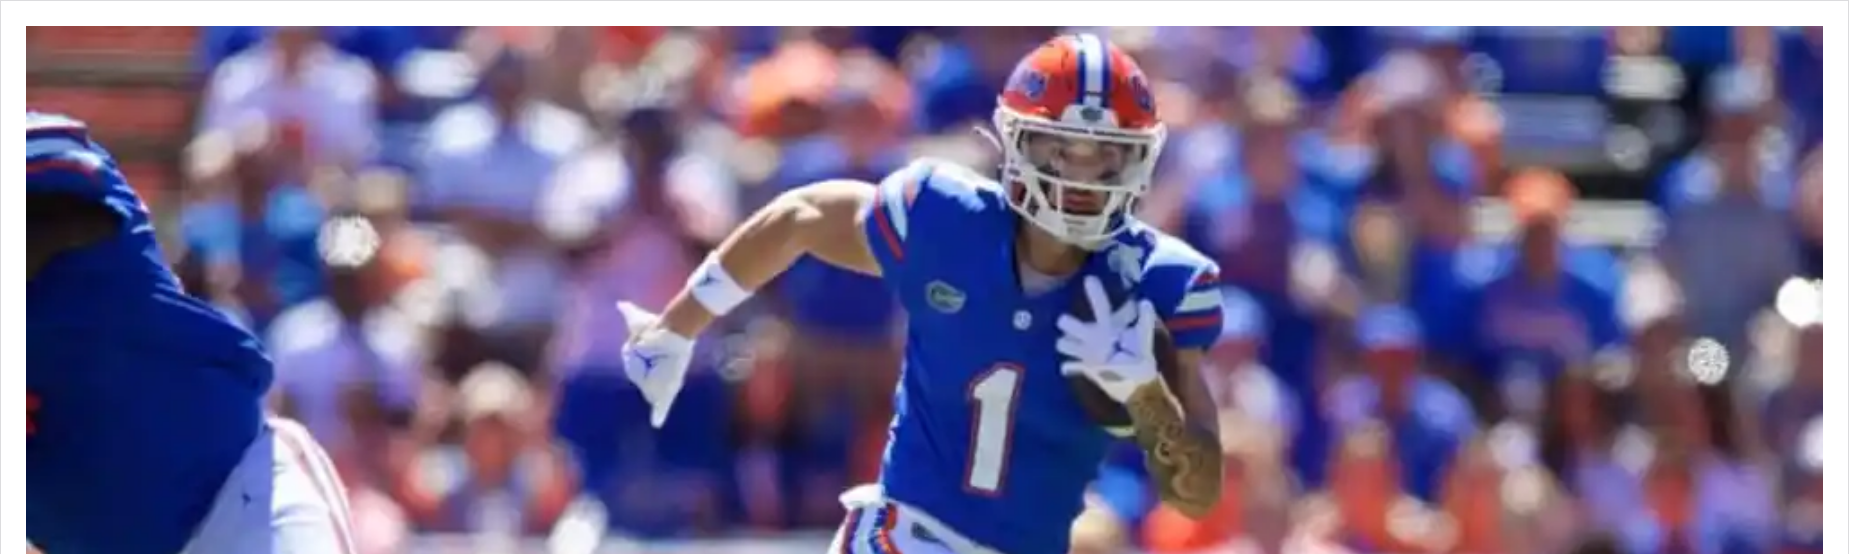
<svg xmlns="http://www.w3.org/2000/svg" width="1849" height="554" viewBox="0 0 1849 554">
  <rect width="100%" height="100%" fill="rgb(255,255,255)"/>
  <rect x="0.5" y="0.5" width="1848" height="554" fill="none" stroke="rgb(220,220,222)"/>
  <image x="26" y="26" width="1797" height="528" href="pic1.png"/>
</svg>
